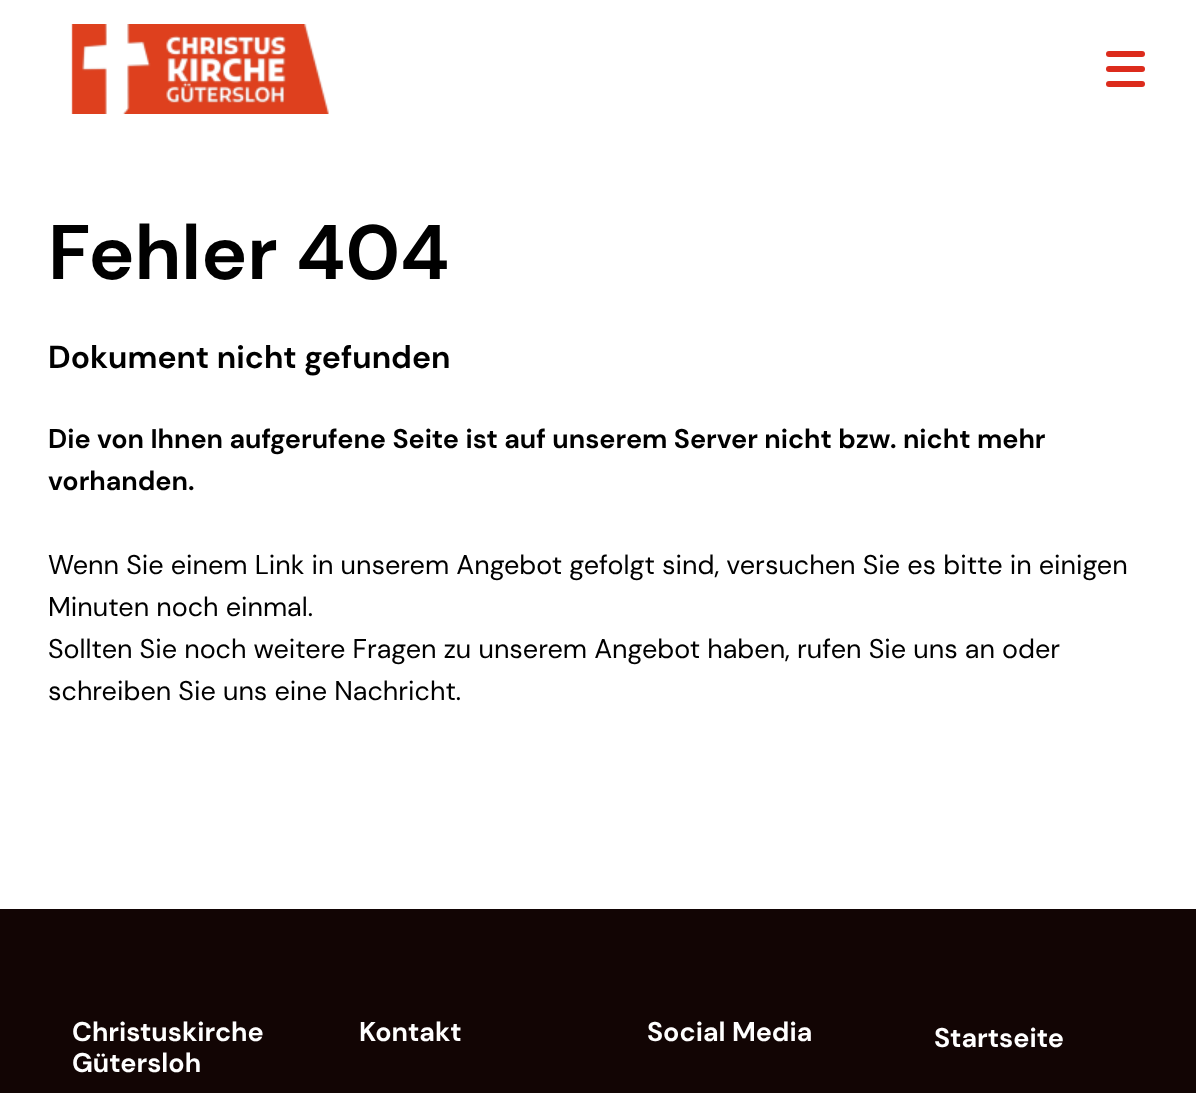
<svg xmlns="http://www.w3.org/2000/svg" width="1196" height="1093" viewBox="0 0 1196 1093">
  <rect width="100%" height="100%" fill="rgb(255,255,255)"/>
  <image x="71" y="24" width="258" height="90" href="pic1.png"/>
  <rect x="1106" y="66" width="39" height="6" rx="3" fill="rgb(220,43,28)"/>
  <rect x="1106" y="51" width="39" height="6" rx="3" fill="rgb(220,43,28)"/>
  <rect x="1106" y="81" width="39" height="6" rx="3" fill="rgb(220,43,28)"/>
  <text x="48" y="279" font-family="DM Sans" font-size="77" font-weight="bold" fill="rgb(0,0,0)">Fehler 404</text>
  <text x="48" y="368" font-family="DM Sans" font-size="31.9" font-weight="bold" fill="rgb(0,0,0)">Dokument nicht gefunden</text>
  <g font-family="DM Sans" font-size="27" font-weight="bold" fill="rgb(0,0,0)">
    <text>
      <tspan x="48" y="448">Die von Ihnen aufgerufene Seite ist auf unserem Server nicht bzw. nicht mehr</tspan>
      <tspan x="48" y="490">vorhanden.</tspan>
    </text>
  </g>
  <g font-family="DM Sans" font-size="27" fill="rgb(0,0,0)">
    <text>
      <tspan x="48" y="574">Wenn Sie einem Link in unserem Angebot gefolgt sind, versuchen Sie es bitte in einigen</tspan>
      <tspan x="48" y="616">Minuten noch einmal.</tspan>
      <tspan x="48" y="658">Sollten Sie noch weitere Fragen zu unserem Angebot haben, rufen Sie uns an oder</tspan>
      <tspan x="48" y="700">schreiben Sie uns eine Nachricht.</tspan>
    </text>
  </g>
  <rect x="0" y="909" width="1196" height="184" fill="rgb(18,5,4)"/>
  <g font-family="DM Sans" font-size="27" font-weight="bold" fill="rgb(255,255,255)">
    <text>
      <tspan x="72" y="1041">Christuskirche</tspan>
      <tspan x="72" y="1072">Gütersloh</tspan>
    </text>
    <text x="359" y="1041">Kontakt</text>
    <text x="647" y="1041">Social Media</text>
    <text x="934" y="1047">Startseite</text>
  </g>
</svg>
